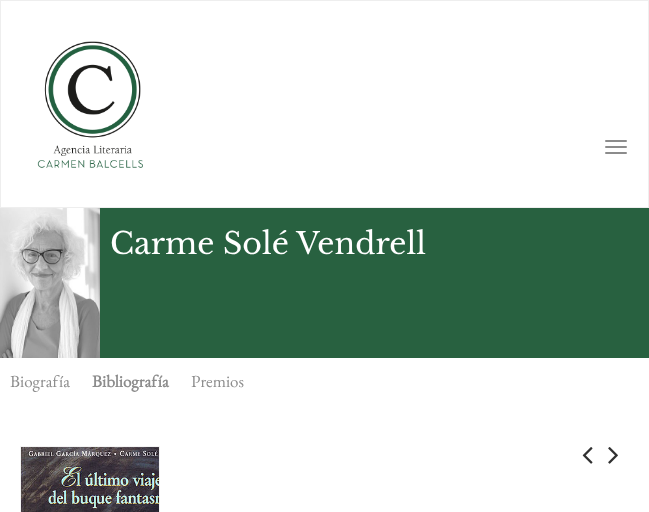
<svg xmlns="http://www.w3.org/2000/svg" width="649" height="512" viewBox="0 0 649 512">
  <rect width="100%" height="100%" fill="rgb(255,255,255)"/>
  <rect x="0" y="0" width="649" height="1" fill="rgb(238,238,238)"/>
  <rect x="648" y="0" width="1" height="208" fill="rgb(239,239,239)"/>
  <rect x="0" y="207" width="649" height="1" fill="rgb(238,238,238)"/>
  <rect x="0" y="0" width="1" height="208" fill="rgb(238,238,238)"/>
  <image x="37" y="41" width="106" height="127" href="pic1.png"/>
  <rect x="605" y="140" width="22" height="2" rx="1" fill="rgb(140,140,140)"/>
  <rect x="605" y="146" width="22" height="2" rx="1" fill="rgb(140,140,140)"/>
  <rect x="605" y="152" width="22" height="2" rx="1" fill="rgb(140,140,140)"/>
  <rect x="100" y="208" width="549" height="150" fill="rgb(40,97,64)"/>
  <image x="0" y="208" width="100" height="150" href="pic2.png"/>
  <text x="110" y="254" font-family="Libre Baskerville" font-size="30" fill="rgb(255,255,255)">Carme Solé Vendrell</text>
  <text x="10" y="387" font-family="EB Garamond" font-size="17" fill="rgb(140,140,140)">Biografía</text>
  <text x="92" y="387" font-family="EB Garamond" font-size="17" font-weight="bold" fill="rgb(140,140,140)">Bibliografía</text>
  <text x="191" y="387" font-family="EB Garamond" font-size="17" fill="rgb(140,140,140)">Premios</text>
  <rect x="20.5" y="446.5" width="139" height="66" fill="none" stroke="rgb(243,243,243)"/>
  <image x="21" y="447" width="138" height="65" href="pic3.png"/>
  <image x="582" y="447" width="11" height="17" href="pic4.png"/>
  <image x="608" y="447" width="10" height="17" href="pic5.png"/>
</svg>
